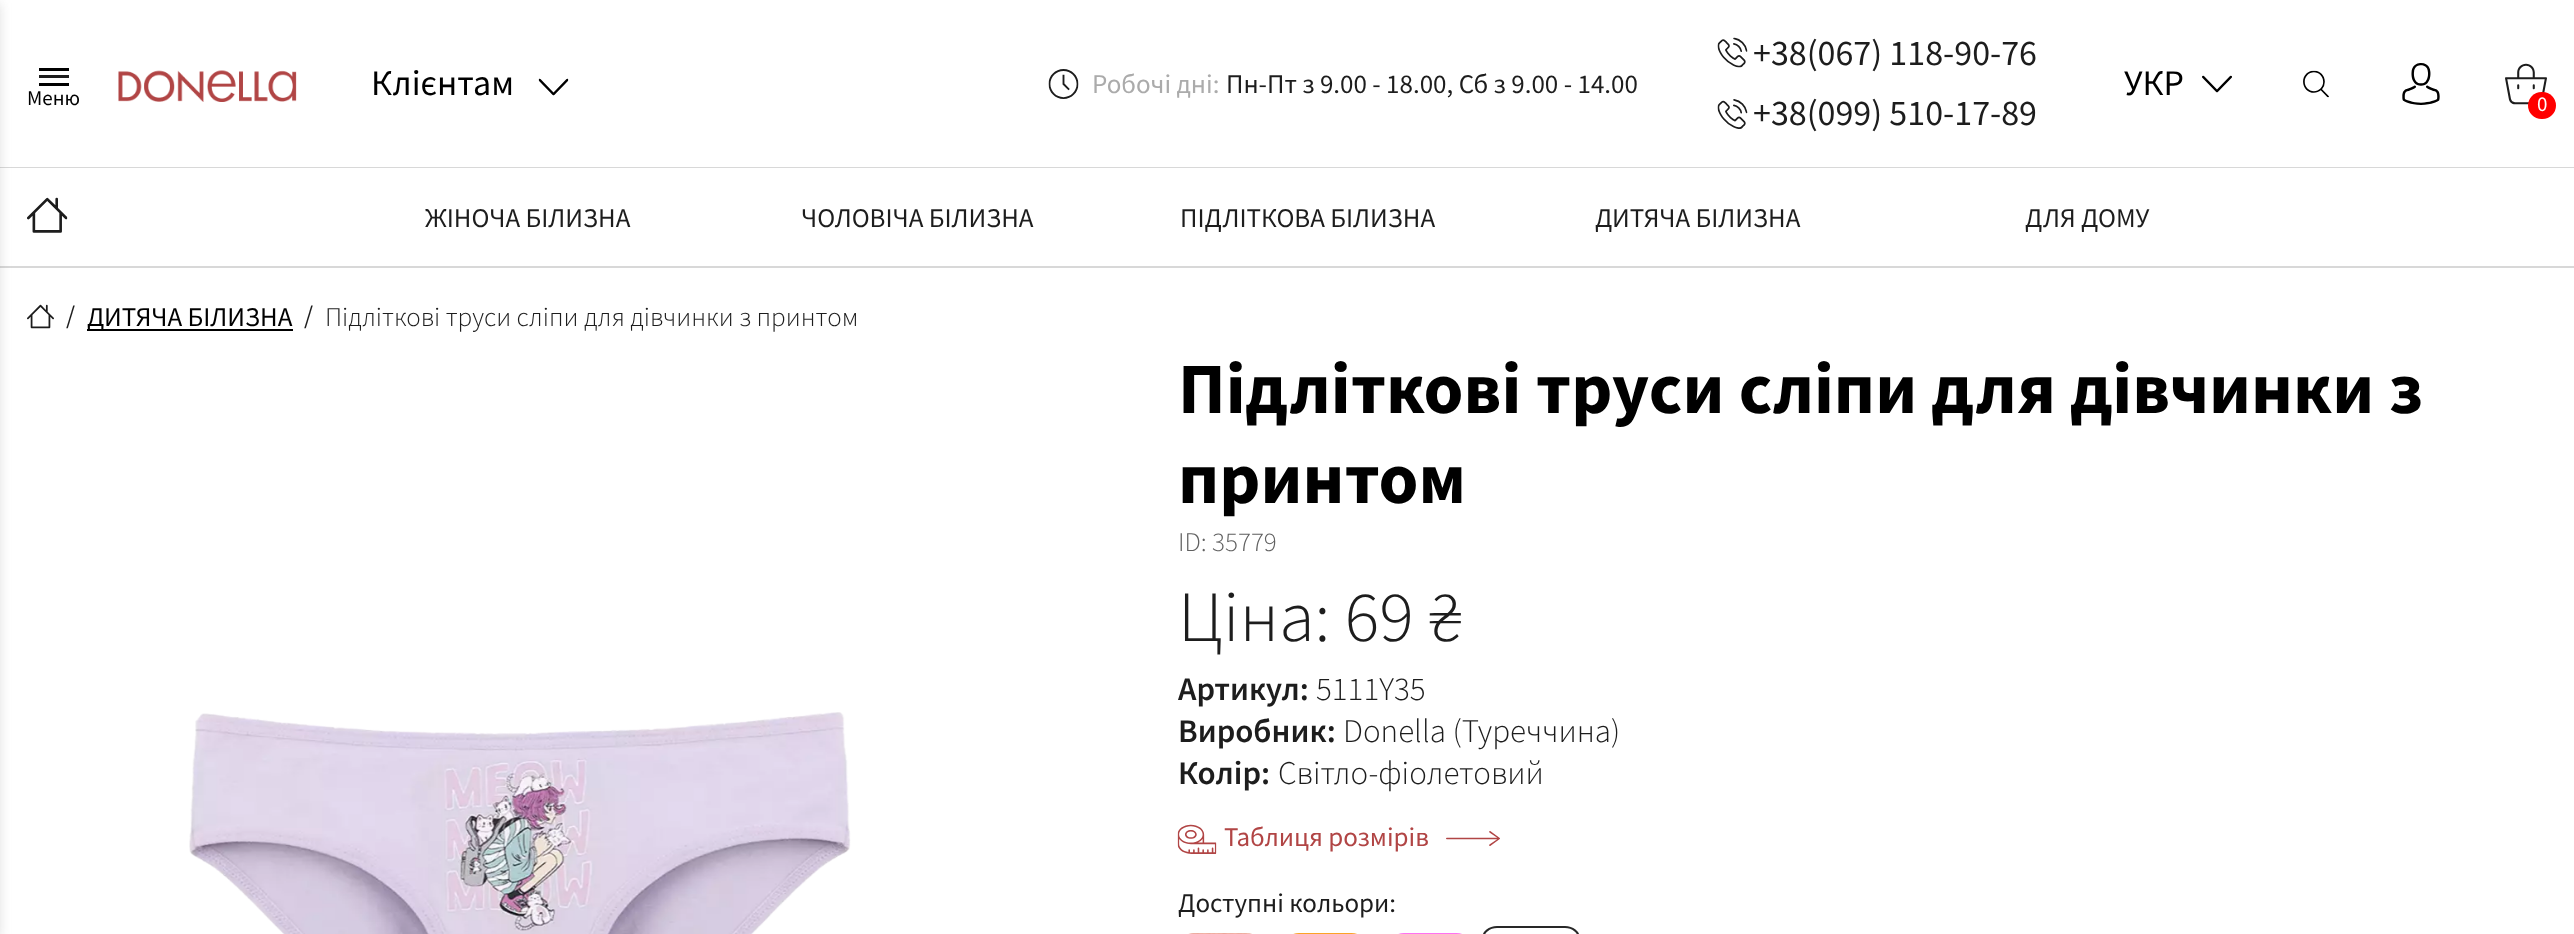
<svg xmlns="http://www.w3.org/2000/svg" width="2574" height="934" viewBox="0 0 2574 934">
  <rect width="100%" height="100%" fill="rgb(255,255,255)"/>
  <rect x="0" y="167" width="2574" height="1" fill="rgb(216,216,216)"/>
  <rect x="0" y="266" width="2574" height="2" fill="rgb(216,216,216)"/>
  <rect x="-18" y="3" width="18" height="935" fill="rgba(99,99,99,0.2)" filter="blur(6px)"/>
  <image x="118" y="70" width="179" height="32" href="pic1.png"/>
  <text x="371" y="95" font-family="Source Sans Pro" font-size="36" fill="rgb(0,0,0)">Клієнтам</text>
  <image x="538" y="78" width="31" height="18" href="pic2.png"/>
  <rect x="39" y="75" width="30" height="3" fill="rgb(29,29,29)"/>
  <rect x="39" y="68" width="30" height="3" fill="rgb(0,0,0)"/>
  <rect x="39" y="83" width="30" height="3" fill="rgb(0,0,0)"/>
  <text x="27" y="105" font-family="Source Sans Pro" font-size="21" fill="rgb(0,0,0)">Меню</text>
  <image x="1048" y="69" width="31" height="30" href="pic3.png"/>
  <text x="1092" y="93" font-family="Source Sans Pro" font-size="27" fill="rgb(171,171,171)">Робочі дні:</text>
  <text x="1226" y="93" font-family="Source Sans Pro" font-size="27" fill="rgb(29,29,29)">Пн-Пт з 9.00 - 18.00, Сб з 9.00 - 14.00</text>
  <image x="1717" y="37" width="31" height="31" href="pic4.png"/>
  <text x="1753" y="65" font-family="Source Sans Pro" font-size="36" fill="rgb(29,29,29)">+38(067) 118-90-76</text>
  <image x="1717" y="99" width="31" height="30" href="pic5.png"/>
  <text x="1753" y="125" font-family="Source Sans Pro" font-size="36" fill="rgb(29,29,29)">+38(099) 510-17-89</text>
  <text x="2124" y="95" font-family="Source Sans Pro" font-size="36" fill="rgb(0,0,0)">УКР</text>
  <image x="2202" y="75" width="30" height="18" href="pic6.png"/>
  <image x="2303" y="70" width="26" height="28" href="pic7.png"/>
  <image x="2402" y="63" width="38" height="42" href="pic8.png"/>
  <image x="2505" y="63" width="42" height="42" href="pic9.png"/>
  <rect x="2528" y="92" width="28" height="27" rx="13.5" fill="rgb(255,0,0)"/>
  <text x="2537" y="111" font-family="Source Sans Pro" font-size="21" fill="rgb(255,255,255)">0</text>
  <image x="27" y="197" width="41" height="36" href="pic10.png"/>
  <g font-family="Source Sans Pro" font-size="27" fill="rgb(29,29,29)">
    <text x="425" y="227">ЖІНОЧА БІЛИЗНА</text>
    <text x="801" y="227">ЧОЛОВІЧА БІЛИЗНА</text>
    <text x="1180" y="227">ПІДЛІТКОВА БІЛИЗНА</text>
    <text x="1595" y="227">ДИТЯЧА БІЛИЗНА</text>
    <text x="2025" y="227">ДЛЯ ДОМУ</text>
  </g>
  <image x="27" y="304" width="27" height="25" href="pic11.png"/>
  <text x="66" y="324" font-family="Source Sans Pro" font-size="26" fill="rgb(29,29,29)">/</text>
  <text x="87" y="326" font-family="Source Sans Pro" font-size="27" fill="rgb(0,0,0)">ДИТЯЧА БІЛИЗНА</text>
  <rect x="87" y="329" width="206" height="2" fill="rgb(0,0,0)"/>
  <text x="304" y="324" font-family="Source Sans Pro" font-size="26" fill="rgb(29,29,29)">/</text>
  <text x="325" y="326" font-family="Source Sans Pro" font-size="27" font-weight="300" fill="rgb(29,29,29)">Підліткові труси сліпи для дівчинки з принтом</text>
  <image x="189" y="712" width="662" height="222" href="pic12.png"/>
  <g font-family="Source Sans Pro" font-size="72" font-weight="bold" fill="rgb(0,0,0)">
    <text>
      <tspan x="1178" y="413">Підліткові труси сліпи для дівчинки з</tspan>
      <tspan x="1178" y="503">принтом</tspan>
    </text>
  </g>
  <text x="1178" y="551" font-family="Source Sans Pro" font-size="27" font-weight="300" fill="rgb(96,96,96)">ID: 35779</text>
  <text x="1178" y="641" font-family="Source Sans Pro" font-size="72" font-weight="300" fill="rgb(29,29,29)">Ціна: 69 ₴</text>
  <text x="1178" y="700" font-family="Source Sans Pro" font-size="33" font-weight="600" fill="rgb(29,29,29)">Артикул:</text>
  <text x="1316" y="700" font-family="Source Sans Pro" font-size="33" font-weight="300" fill="rgb(29,29,29)">5111Y35</text>
  <text x="1178" y="742" font-family="Source Sans Pro" font-size="33" font-weight="600" fill="rgb(29,29,29)">Виробник:</text>
  <text x="1343" y="742" font-family="Source Sans Pro" font-size="33" font-weight="300" fill="rgb(29,29,29)">Donella (Туреччина)</text>
  <text x="1178" y="784" font-family="Source Sans Pro" font-size="33" font-weight="600" fill="rgb(29,29,29)">Колір:</text>
  <text x="1278" y="784" font-family="Source Sans Pro" font-size="33" font-weight="300" fill="rgb(29,29,29)">Світло-фіолетовий</text>
  <image x="1177" y="824" width="40" height="30" href="pic13.png"/>
  <text x="1224" y="846" font-family="Source Sans Pro" font-size="27" fill="rgb(177,69,69)">Таблиця розмірів</text>
  <image x="1446" y="831" width="54" height="15" href="pic14.png"/>
  <text x="1178" y="912" font-family="Source Sans Pro" font-size="27" fill="rgb(29,29,29)">Доступні кольори:</text>
  <image x="1188" y="933" width="64" height="1" href="pic15.png"/>
  <image x="1293" y="933" width="64" height="1" href="pic16.png"/>
  <image x="1398" y="933" width="64" height="1" href="pic17.png"/>
  <rect x="1483" y="927" width="96" height="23" rx="14" fill="none" stroke="rgb(40,40,40)" stroke-width="2"/>
</svg>
